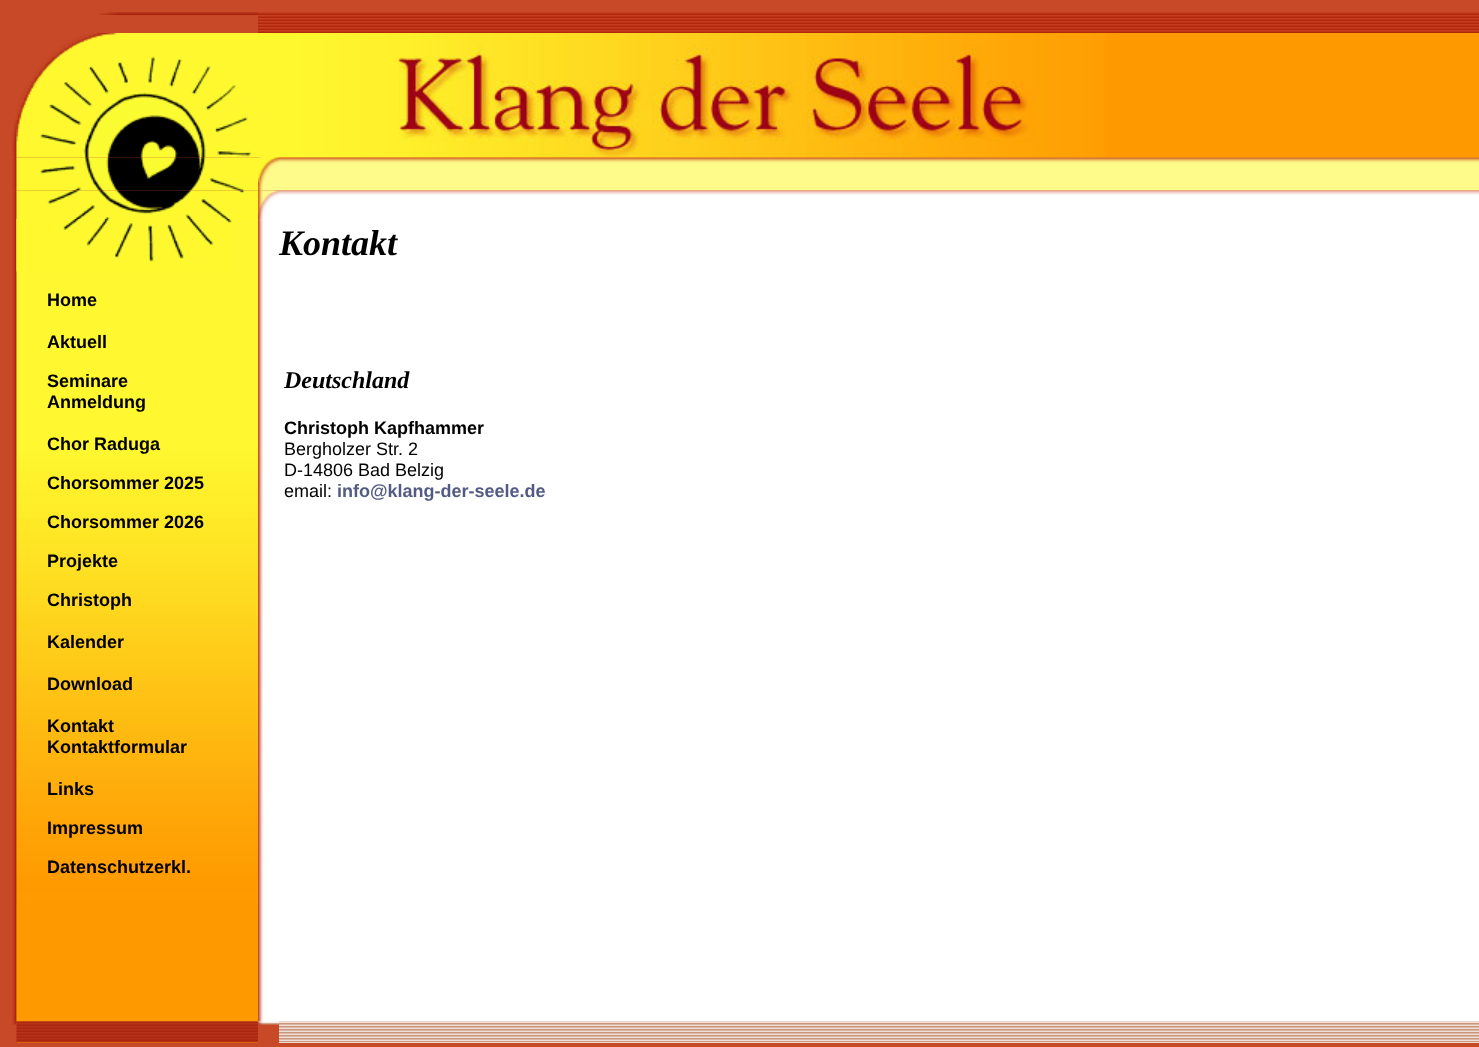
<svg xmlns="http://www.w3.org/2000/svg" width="1479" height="1047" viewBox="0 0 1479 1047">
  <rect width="100%" height="100%" fill="rgb(200,73,39)"/>
  <image x="99" y="12" width="159" height="3" href="pic1.png"/>
  <image x="258" y="12" width="21" height="21" href="pic2.png"/>
  <image x="279" y="12" width="1200" height="21" href="pic3.png"/>
  <image x="12" y="157" width="5" height="34" href="pic7.png"/>
  <image x="12" y="118" width="5" height="40" href="pic4.png"/>
  <image x="16" y="33" width="242" height="125" href="pic5.png"/>
  <rect x="258" y="33" width="21" height="125" fill="rgb(255,248,47)"/>
  <rect x="279" y="33" width="1200" height="125" fill="rgb(255,153,0)"/>
  <image x="279" y="33" width="827" height="125" href="pic6.png"/>
  <image x="12" y="190" width="5" height="29" href="pic12.png"/>
  <image x="16" y="157" width="242" height="34" href="pic8.png"/>
  <image x="258" y="157" width="5" height="34" href="pic9.png"/>
  <image x="258" y="190" width="5" height="1" href="pic14.png"/>
  <image x="258" y="157" width="21" height="34" href="pic10.png"/>
  <image x="279" y="157" width="1200" height="34" href="pic11.png"/>
  <image x="16" y="190" width="242" height="29" href="pic13.png"/>
  <image x="258" y="190" width="21" height="29" href="pic15.png"/>
  <rect x="279" y="195" width="1200" height="24" fill="rgb(255,255,255)"/>
  <image x="279" y="190" width="1200" height="5" href="pic16.png"/>
  <image x="12" y="219" width="5" height="803" href="pic17.png"/>
  <rect x="258" y="219" width="1221" height="803" fill="rgb(255,255,255)"/>
  <image x="258" y="219" width="5" height="803" href="pic18.png"/>
  <image x="259" y="219" width="3" height="2" href="pic19.png"/>
  <image x="16" y="219" width="242" height="803" href="pic20.png"/>
  <image x="16" y="219" width="216" height="53" href="pic21.png"/>
  <g font-family="Liberation Sans" font-size="18" font-weight="bold" fill="rgb(0,0,0)">
    <text x="47" y="306">Home</text>
    <text x="47" y="348">Aktuell</text>
    <text>
      <tspan x="47" y="387">Seminare</tspan>
      <tspan x="47" y="408">Anmeldung</tspan>
    </text>
    <text x="47" y="450">Chor Raduga</text>
    <text x="47" y="489">Chorsommer 2025</text>
    <text x="47" y="528">Chorsommer 2026</text>
    <text x="47" y="567">Projekte</text>
    <text x="47" y="606">Christoph</text>
    <text x="47" y="648">Kalender</text>
    <text x="47" y="690">Download</text>
    <text>
      <tspan x="47" y="732">Kontakt</tspan>
      <tspan x="47" y="753">Kontaktformular</tspan>
    </text>
    <text x="47" y="795">Links</text>
    <text x="47" y="834">Impressum</text>
    <text x="47" y="873">Datenschutzerkl.</text>
  </g>
  <text x="279" y="255" font-family="Liberation Serif" font-size="36" font-weight="bold" font-style="italic" fill="rgb(0,0,0)">Kontakt</text>
  <text x="284" y="388" font-family="Liberation Serif" font-size="24" font-weight="bold" font-style="italic" fill="rgb(0,0,0)">Deutschland</text>
  <text x="284" y="434" font-family="Liberation Sans" font-size="18" font-weight="bold" fill="rgb(0,0,0)">Christoph Kapfhammer</text>
  <g font-family="Liberation Sans" font-size="18" fill="rgb(0,0,0)">
    <text>
      <tspan x="284" y="455">Bergholzer Str. 2</tspan>
      <tspan x="284" y="476">D-14806 Bad Belzig</tspan>
      <tspan x="284" y="497">email:</tspan>
    </text>
  </g>
  <text x="337" y="497" font-family="Liberation Sans" font-size="18" font-weight="bold" fill="rgb(83,91,132)">info@klang-der-seele.de</text>
  <rect x="17" y="1042" width="241" height="1" fill="rgb(255,153,0)"/>
  <image x="16" y="1021" width="242" height="22" href="pic23.png"/>
  <image x="12" y="1021" width="5" height="4" href="pic22.png"/>
  <image x="258" y="1021" width="21" height="4" href="pic24.png"/>
  <rect x="279" y="1042" width="1200" height="1" fill="rgb(255,255,255)"/>
  <image x="279" y="1021" width="1200" height="22" href="pic25.png"/>
</svg>
